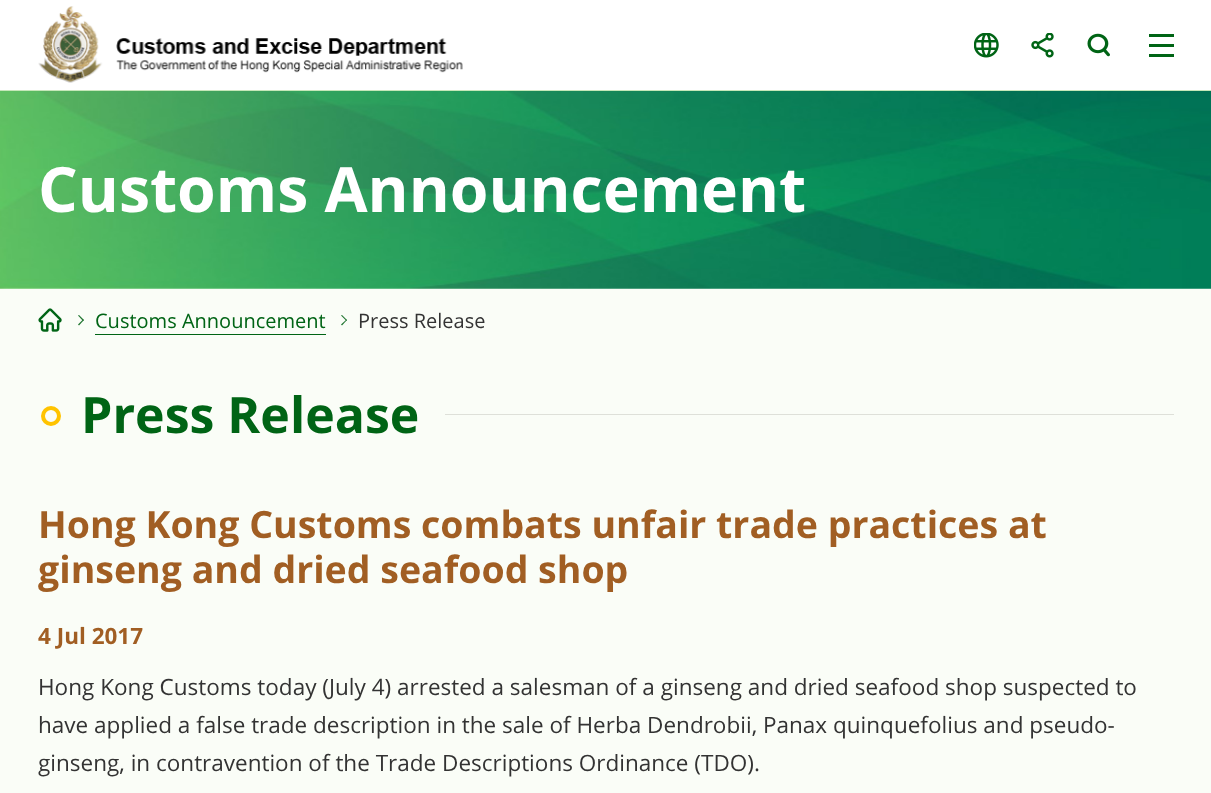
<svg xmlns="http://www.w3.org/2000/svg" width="1211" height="793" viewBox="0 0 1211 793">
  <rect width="100%" height="100%" fill="rgb(250,253,247)"/>
  <rect x="0" y="0" width="1211" height="90" fill="rgb(255,255,255)"/>
  <rect x="0" y="90" width="1211" height="1" fill="rgb(198,231,185)"/>
  <image x="38" y="6" width="425" height="77" href="pic1.png"/>
  <image x="974" y="33" width="25" height="25" href="pic2.png"/>
  <image x="1031" y="33" width="23" height="25" href="pic3.png"/>
  <image x="1087" y="33" width="23" height="24" href="pic4.png"/>
  <rect x="1149" y="44" width="25" height="3" fill="rgb(0,100,21)"/>
  <rect x="1149" y="34" width="25" height="3" fill="rgb(0,100,21)"/>
  <rect x="1149" y="54" width="25" height="3" fill="rgb(0,100,21)"/>
  <image x="0" y="91" width="1211" height="198" href="pic5.png"/>
  <text x="38" y="212" font-family="Open Sans" font-size="62.5" font-weight="bold" fill="rgb(255,255,255)">Customs Announcement</text>
  <image x="38" y="308" width="24" height="24" href="pic6.png"/>
  <path d="M78 315.5L79 315L84 320L83 321Z" fill="rgb(32,117,49)"/>
  <path d="M78 324.5L83 319.5L84 320L79 325.5Z" fill="rgb(32,117,49)"/>
  <text x="95" y="328" font-family="Open Sans" font-size="20" fill="rgb(0,100,21)">Customs Announcement</text>
  <rect x="95" y="334" width="231" height="1" fill="rgb(0,100,21)"/>
  <path d="M341 315.5L342 315L347 320L346.5 321Z" fill="rgb(32,117,49)"/>
  <path d="M341 324.5L346.5 319.5L347 320L342 325.5Z" fill="rgb(32,117,49)"/>
  <text x="358" y="328" font-family="Open Sans" font-size="20" fill="rgb(51,51,51)">Press Release</text>
  <circle cx="51" cy="416" r="8" fill="none" stroke="rgb(255,195,0)" stroke-width="4"/>
  <text x="81" y="433" font-family="Open Sans" font-size="50" font-weight="bold" fill="rgb(0,100,21)">Press Release</text>
  <rect x="445" y="414" width="729" height="1" fill="rgb(222,224,217)"/>
  <g font-family="Open Sans" font-size="37.5" font-weight="bold" fill="rgb(161,94,35)">
    <text>
      <tspan x="38" y="538">Hong Kong Customs combats unfair trade practices at</tspan>
      <tspan x="38" y="583">ginseng and dried seafood shop</tspan>
    </text>
  </g>
  <text x="38" y="644" font-family="Open Sans" font-size="22.5" font-weight="bold" fill="rgb(161,94,35)">4 Jul 2017</text>
  <g font-family="Open Sans" font-size="22.5" fill="rgb(51,51,51)">
    <text>
      <tspan x="38" y="695">Hong Kong Customs today (July 4) arrested a salesman of a ginseng and dried seafood shop suspected to</tspan>
      <tspan x="38" y="733">have applied a false trade description in the sale of Herba Dendrobii, Panax quinquefolius and pseudo-</tspan>
      <tspan x="38" y="771">ginseng, in contravention of the Trade Descriptions Ordinance (TDO).</tspan>
    </text>
  </g>
</svg>
